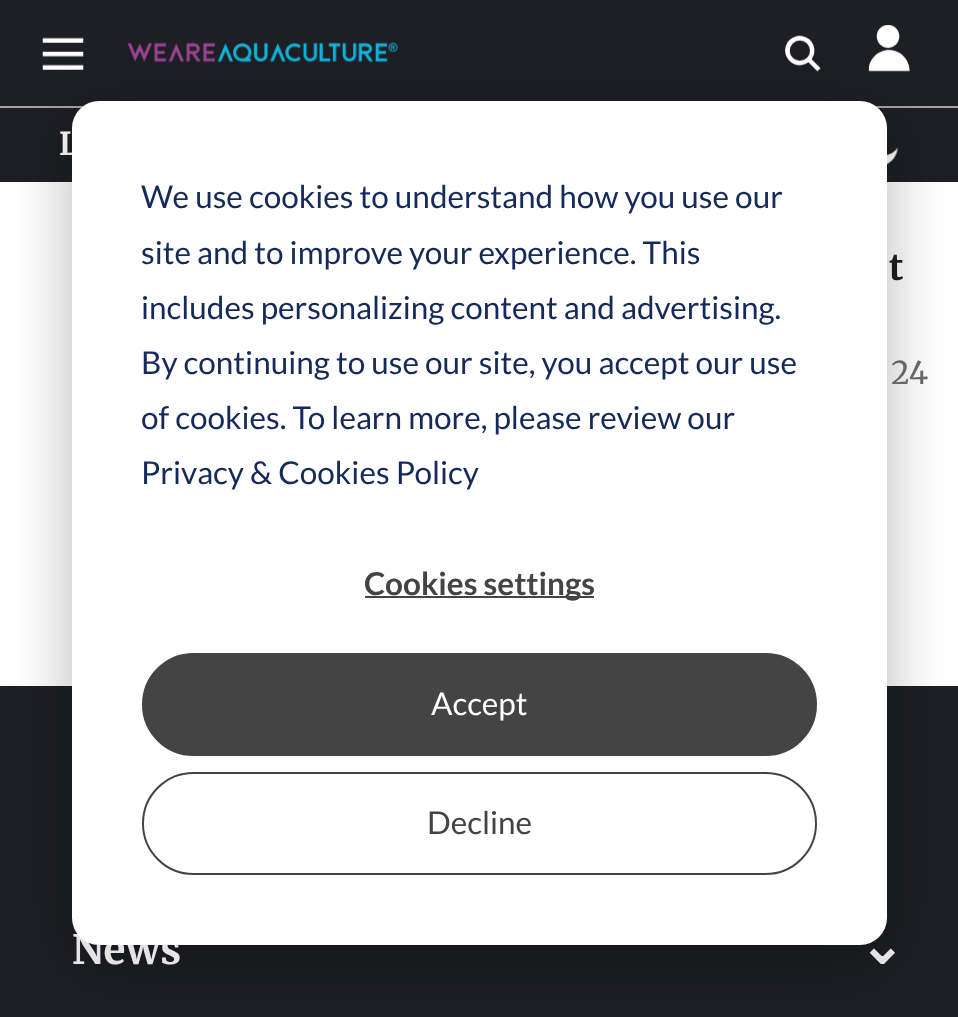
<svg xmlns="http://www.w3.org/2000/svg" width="958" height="1017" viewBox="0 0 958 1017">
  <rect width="100%" height="100%" fill="rgb(255,255,255)"/>
  <rect x="0" y="0" width="958" height="106" fill="rgb(30,31,36)"/>
  <rect x="0" y="106" width="958" height="2" fill="rgb(164,164,164)"/>
  <image x="42" y="37" width="42" height="33" href="pic1.png"/>
  <image x="127" y="42" width="271" height="21" href="pic2.png"/>
  <image x="785" y="35" width="36" height="37" href="pic3.png"/>
  <image x="868" y="25" width="42" height="47" href="pic4.png"/>
  <rect x="0" y="108" width="958" height="74" fill="rgb(30,31,36)"/>
  <text x="59" y="155" font-family="Merriweather" font-size="31.5" font-weight="300" fill="rgb(255,255,255)">L</text>
  <image x="887" y="147" width="12" height="18" href="pic5.png"/>
  <rect x="0" y="686" width="958" height="331" fill="rgb(30,31,36)"/>
  <rect x="72" y="119" width="815" height="844" rx="27" fill="rgba(0,0,0,0.28)" filter="blur(31.5px)"/>
  <text x="72" y="964" font-family="Merriweather" font-size="40.5" font-weight="300" fill="rgb(228,228,228)">News</text>
  <rect x="72" y="101" width="815" height="844" rx="27" fill="rgb(255,255,255)"/>
  <g font-family="Lato" font-size="31.5" fill="rgb(21,41,90)">
    <text>
      <tspan x="141" y="208">We use cookies to understand how you use our</tspan>
      <tspan x="141" y="264">site and to improve your experience. This</tspan>
      <tspan x="141" y="319">includes personalizing content and advertising.</tspan>
      <tspan x="141" y="374">By continuing to use our site, you accept our use</tspan>
      <tspan x="141" y="429">of cookies. To learn more, please review our</tspan>
      <tspan x="141" y="484">Privacy &amp; Cookies Policy</tspan>
    </text>
  </g>
  <rect x="365" y="596" width="229" height="2" fill="rgb(68,68,68)"/>
  <text x="364" y="595" font-family="Lato" font-size="31.5" font-weight="bold" fill="rgb(68,68,68)">Cookies settings</text>
  <rect x="143" y="654" width="673" height="101" rx="50.5" fill="rgb(68,68,68)" stroke="rgb(68,68,68)" stroke-width="2"/>
  <text x="431" y="715" font-family="Lato" font-size="31.5" fill="rgb(255,255,255)">Accept</text>
  <rect x="143" y="773" width="673" height="101" rx="50.5" fill="none" stroke="rgb(68,68,68)" stroke-width="2"/>
  <text x="427" y="834" font-family="Lato" font-size="31.5" fill="rgb(68,68,68)">Decline</text>
  <text x="889" y="280" font-family="Merriweather" font-size="36" font-weight="300" fill="rgb(26,26,26)">t</text>
  <text x="891" y="384" font-family="'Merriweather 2'" font-size="31.5" font-weight="300" fill="rgb(102,102,102)">24</text>
  <text x="859" y="964" font-family="DejaVu Sans" font-size="54" font-weight="bold" fill="rgb(228,228,228)">⌄</text>
</svg>
